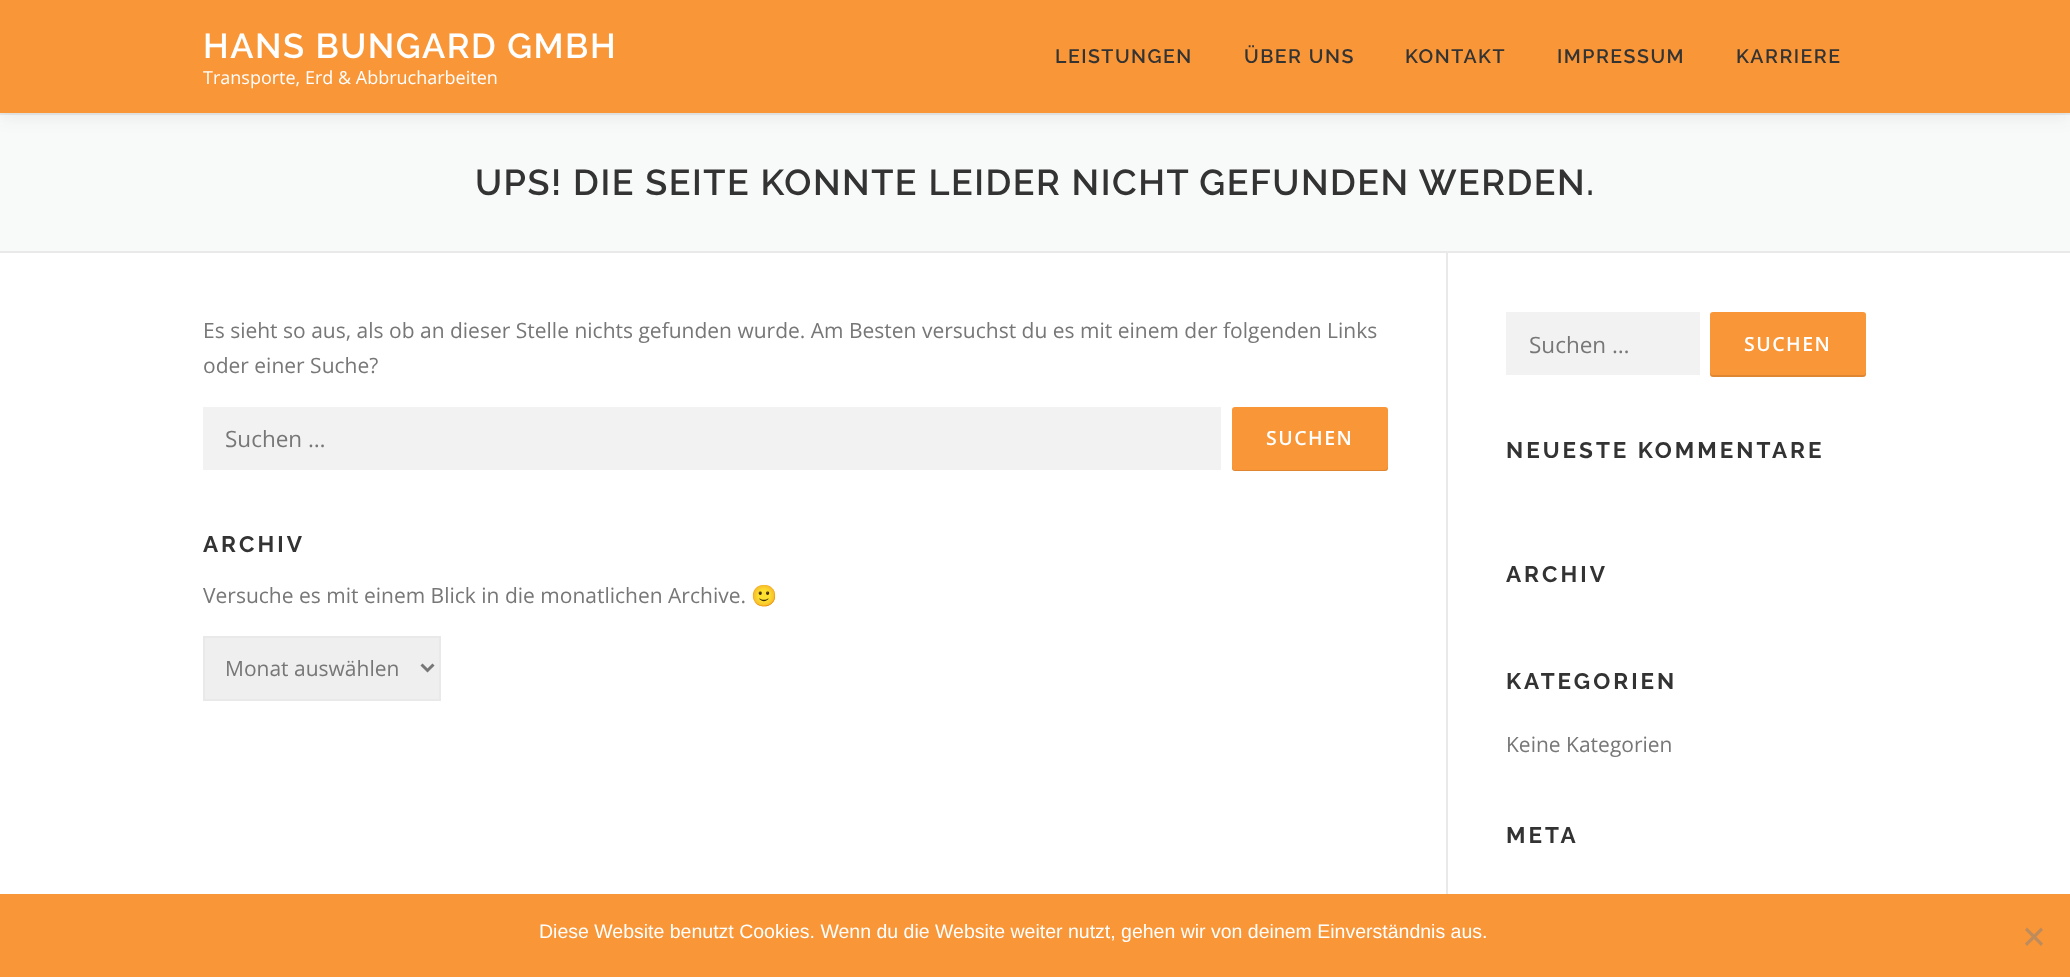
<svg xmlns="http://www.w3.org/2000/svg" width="2070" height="977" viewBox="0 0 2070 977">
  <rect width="100%" height="100%" fill="rgb(255,255,255)"/>
  <rect x="0" y="115" width="2070" height="136" fill="rgb(248,249,249)"/>
  <rect x="0" y="113" width="2070" height="2" fill="rgb(233,233,233)"/>
  <rect x="0" y="8" width="2070" height="112" fill="rgba(50,50,50,0.06)" filter="blur(7.5px)"/>
  <rect x="0" y="0" width="2070" height="113" fill="rgb(249,150,56)"/>
  <text x="203" y="58" font-family="Raleway" font-size="34.5" font-weight="100" letter-spacing="1.5" fill="rgb(255,255,255)">HANS BUNGARD GMBH</text>
  <text x="203" y="84" font-family="Open Sans" font-size="18" fill="rgb(255,255,255)">Transporte, Erd &amp; Abbrucharbeiten</text>
  <g font-family="Raleway" font-size="19.5" font-weight="100" letter-spacing="1.5" fill="rgb(51,51,51)">
    <text x="1055" y="63">LEISTUNGEN</text>
    <text x="1244" y="63">ÜBER UNS</text>
    <text x="1405" y="63">KONTAKT</text>
    <text x="1557" y="63">IMPRESSUM</text>
    <text x="1736" y="63">KARRIERE</text>
  </g>
  <rect x="0" y="251" width="2070" height="2" fill="rgb(233,233,233)"/>
  <text x="475" y="195" font-family="Raleway" font-size="36" font-weight="100" letter-spacing="1.5" fill="rgb(51,51,51)">UPS! DIE SEITE KONNTE LEIDER NICHT GEFUNDEN WERDEN.</text>
  <g font-family="Open Sans" font-size="21" fill="rgb(119,119,119)">
    <text>
      <tspan x="203" y="338">Es sieht so aus, als ob an dieser Stelle nichts gefunden wurde. Am Besten versuchst du es mit einem der folgenden Links</tspan>
      <tspan x="203" y="373">oder einer Suche?</tspan>
    </text>
  </g>
  <rect x="203" y="407" width="1018" height="63" fill="rgb(242,242,242)"/>
  <text x="225" y="447" font-family="Open Sans" font-size="22.5" fill="rgb(119,119,119)">Suchen …</text>
  <rect x="1232" y="407" width="156" height="64" rx="3" fill="rgb(249,150,56)"/>
  <path d="M1232 466V468C1232 470 1233 471 1235 471H1385C1387 471 1388 470 1388 468V466C1388 468 1386 470 1384 470H1234C1233 470 1232 468 1232 466Z" fill="rgba(0,0,0,0.1)"/>
  <text x="1266" y="445" font-family="Open Sans" font-size="19.5" font-weight="600" letter-spacing="1.5" fill="rgb(255,255,255)">SUCHEN</text>
  <text x="203" y="552" font-family="'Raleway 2'" font-size="22.5" font-weight="100" letter-spacing="3" fill="rgb(51,51,51)">ARCHIV</text>
  <text x="203" y="603" font-family="Open Sans" font-size="21" fill="rgb(119,119,119)">Versuche es mit einem Blick in die monatlichen Archive.</text>
  <text x="751" y="603" font-family="Noto Color Emoji" font-size="21" fill="rgb(119,119,119)">🙂</text>
  <rect x="204" y="637" width="236" height="63" fill="rgb(239,239,239)" stroke="rgb(233,233,233)" stroke-width="2"/>
  <path d="M421.5 664.5L427.5 670.5L433.5 664.5" fill="none" stroke="rgb(119,119,119)" stroke-width="3"/>
  <text x="225" y="676" font-family="Open Sans" font-size="21" fill="rgb(119,119,119)">Monat auswählen</text>
  <rect x="1446" y="252" width="2" height="642" fill="rgb(233,233,233)"/>
  <rect x="1506" y="312" width="194" height="63" fill="rgb(242,242,242)"/>
  <text x="1529" y="353" font-family="Open Sans" font-size="22.5" fill="rgb(119,119,119)">Suchen …</text>
  <rect x="1710" y="312" width="156" height="65" rx="3" fill="rgb(249,150,56)"/>
  <path d="M1710 372V374C1710 376 1711 377 1713 377H1863C1865 377 1866 376 1866 374V372C1866 374 1865 375 1863 375H1713C1711 375 1710 374 1710 372Z" fill="rgba(0,0,0,0.1)"/>
  <text x="1744" y="351" font-family="Open Sans" font-size="19.5" font-weight="600" letter-spacing="1.5" fill="rgb(255,255,255)">SUCHEN</text>
  <g font-family="'Raleway 2'" font-size="22.5" font-weight="100" letter-spacing="3" fill="rgb(51,51,51)">
    <text x="1506" y="458">NEUESTE KOMMENTARE</text>
    <text x="1506" y="582">ARCHIV</text>
    <text x="1506" y="689">KATEGORIEN</text>
  </g>
  <text x="1506" y="752" font-family="Open Sans" font-size="21" fill="rgb(119,119,119)">Keine Kategorien</text>
  <text x="1506" y="843" font-family="'Raleway 2'" font-size="22.5" font-weight="100" letter-spacing="3" fill="rgb(51,51,51)">META</text>
  <rect x="0" y="894" width="2070" height="83" fill="rgb(249,150,56)"/>
  <text x="539" y="938" font-family="Liberation Sans" font-size="19.5" fill="rgb(255,255,255)">Diese Website benutzt Cookies. Wenn du die Website weiter nutzt, gehen wir von deinem Einverständnis aus.</text>
  <path d="M2041 927.5L2043 930L2027 946L2025 943.5Z" fill="rgb(189,139,92)"/>
  <path d="M2025 930L2027 927.5L2043 943.5L2041 946Z" fill="rgb(189,139,92)"/>
</svg>
